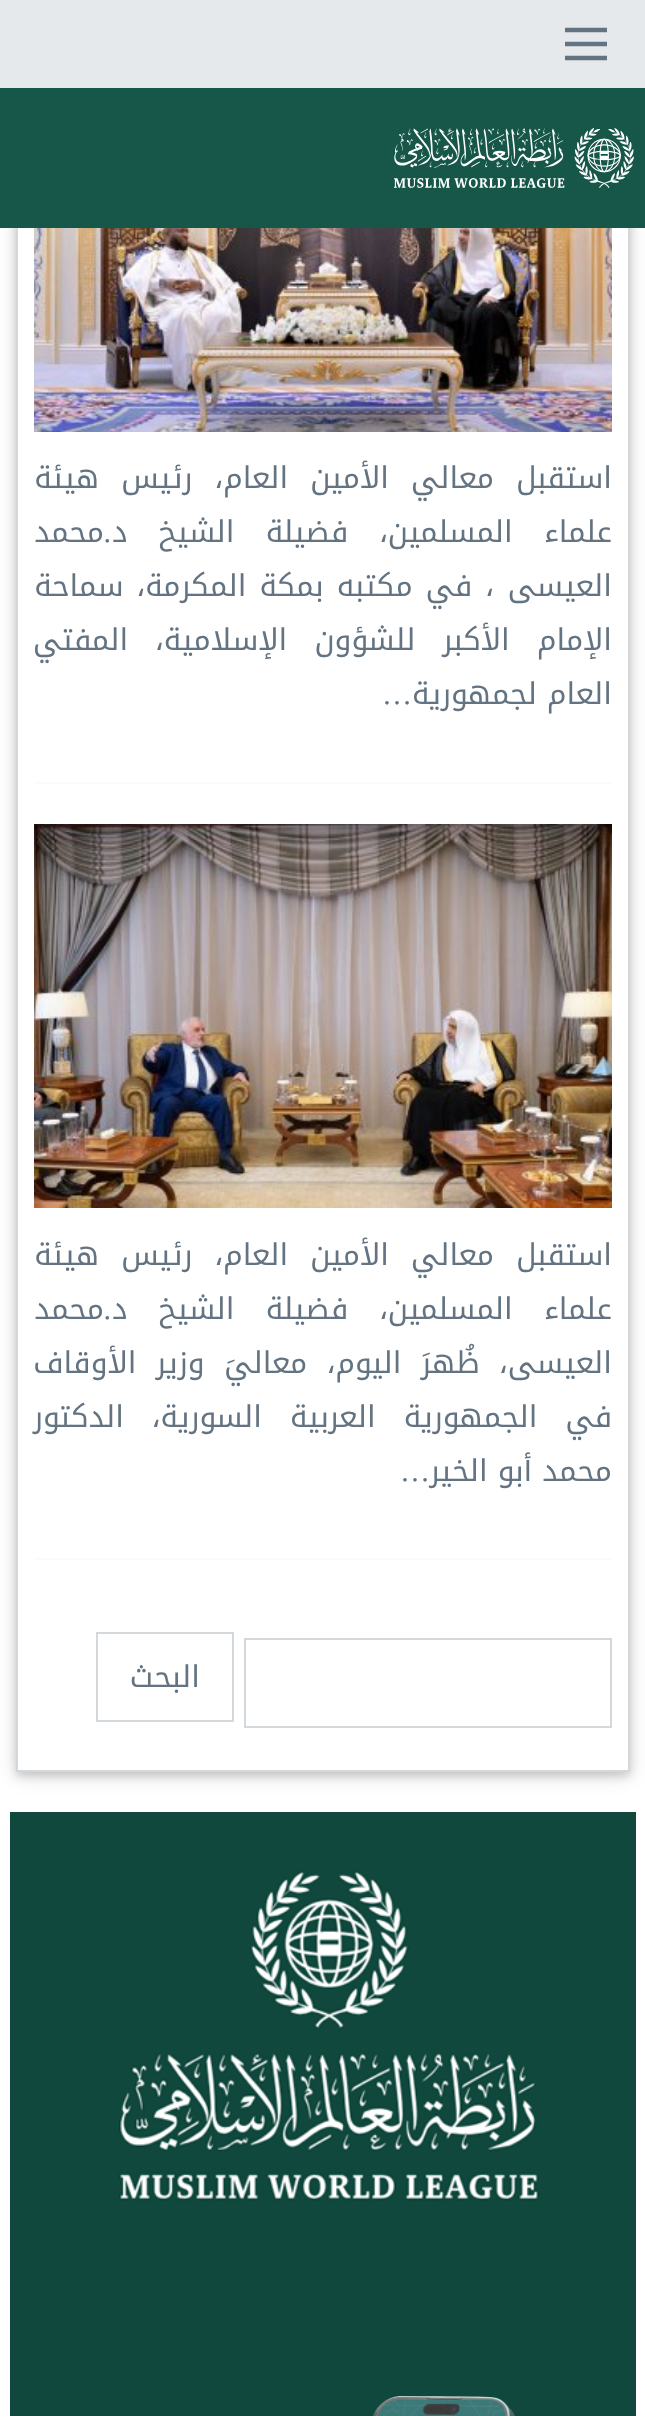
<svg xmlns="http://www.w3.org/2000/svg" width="645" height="2416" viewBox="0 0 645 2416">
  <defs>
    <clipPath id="clip1"><path d="M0 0H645V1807H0ZM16-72H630V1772H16Z" clip-rule="evenodd"/></clipPath>
    <clipPath id="clip2"><path d="M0 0H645V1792H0ZM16-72H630V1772H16Z" clip-rule="evenodd"/></clipPath>
  </defs>
  <rect width="100%" height="100%" fill="rgb(255,255,255)"/>
  <g clip-path="url(#clip1)">
    <rect x="16" y="-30" width="614" height="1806" fill="rgba(0,0,0,0.12)" filter="blur(10px)"/>
  </g>
  <g clip-path="url(#clip2)">
    <rect x="16" y="-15" width="614" height="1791" fill="rgba(0,0,0,0.16)" filter="blur(5px)"/>
  </g>
  <rect x="17" y="-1" width="612" height="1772" fill="none" stroke="rgb(211,216,221)" stroke-width="2"/>
  <rect x="0" y="88" width="645" height="140" fill="rgb(23,87,74)"/>
  <rect x="0" y="0" width="645" height="88" fill="rgb(230,233,236)"/>
  <path d="M565 44H607M565 30H607M565 58H607" fill="none" stroke="rgb(99,115,129)" stroke-width="4.7" stroke-linejoin="bevel"/>
  <image x="394" y="128" width="240" height="60" href="pic1.png"/>
  <image x="34" y="228" width="578" height="204" href="pic2.png"/>
  <g font-family="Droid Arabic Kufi" font-size="30" direction="rtl" fill="rgb(99,115,129)">
    <text>
      <tspan x="612" y="488" word-spacing="12">استقبل معالي الأمين العام، رئيس هيئة</tspan>
      <tspan x="612" y="542" word-spacing="21">علماء المسلمين، فضيلة الشيخ د</tspan>
    </text>
  </g>
  <text x="111" y="542" font-family="Liberation Serif" font-size="30" direction="rtl" fill="rgb(99,115,129)">.</text>
  <g font-family="Droid Arabic Kufi" font-size="30" direction="rtl" fill="rgb(99,115,129)">
    <text x="104" y="542">محمد</text>
    <text x="612" y="596">العيسى</text>
    <text x="494" y="596" word-spacing="3">، في مكتبه بمكة المكرمة، سماحة</text>
    <text>
      <tspan x="612" y="650" word-spacing="17">الإمام الأكبر للشؤون الإسلامية، المفتي</tspan>
      <tspan x="612" y="704">العام لجمهورية</tspan>
    </text>
  </g>
  <text x="412" y="704" font-family="Liberation Serif" font-size="30" direction="rtl" fill="rgb(99,115,129)">…</text>
  <rect x="34" y="782" width="578" height="2" fill="rgb(251,251,251)"/>
  <image x="34" y="824" width="578" height="384" href="pic3.png"/>
  <g font-family="Droid Arabic Kufi" font-size="30" direction="rtl" fill="rgb(99,115,129)">
    <text>
      <tspan x="612" y="1265" word-spacing="12">استقبل معالي الأمين العام، رئيس هيئة</tspan>
      <tspan x="612" y="1319" word-spacing="21">علماء المسلمين، فضيلة الشيخ د</tspan>
    </text>
  </g>
  <text x="111" y="1319" font-family="Liberation Serif" font-size="30" direction="rtl" fill="rgb(99,115,129)">.</text>
  <g font-family="Droid Arabic Kufi" font-size="30" direction="rtl" fill="rgb(99,115,129)">
    <text x="104" y="1319">محمد</text>
    <text>
      <tspan x="612" y="1373" word-spacing="9.5">العيسى، ظُهرَ اليوم، معاليَ وزير الأوقاف</tspan>
      <tspan x="612" y="1427" word-spacing="18">في الجمهورية العربية السورية، الدكتور</tspan>
      <tspan x="612" y="1481">محمد أبو الخير</tspan>
    </text>
  </g>
  <text x="430" y="1481" font-family="Liberation Serif" font-size="30" direction="rtl" fill="rgb(99,115,129)">…</text>
  <rect x="34" y="1558" width="578" height="2" fill="rgb(251,251,251)"/>
  <rect x="245" y="1639" width="366" height="88" fill="none" stroke="rgb(211,216,221)" stroke-width="2"/>
  <rect x="97" y="1633" width="136" height="88" fill="none" stroke="rgb(211,216,221)" stroke-width="2"/>
  <text x="200" y="1687" font-family="Droid Arabic Kufi" font-size="30" direction="rtl" fill="rgb(99,115,129)">البحث</text>
  <rect x="10" y="1812" width="626" height="604" fill="rgb(17,72,61)"/>
  <image x="119" y="1870" width="420" height="331" href="pic4.png"/>
  <image x="373" y="2396" width="142" height="20" href="pic5.png"/>
</svg>
